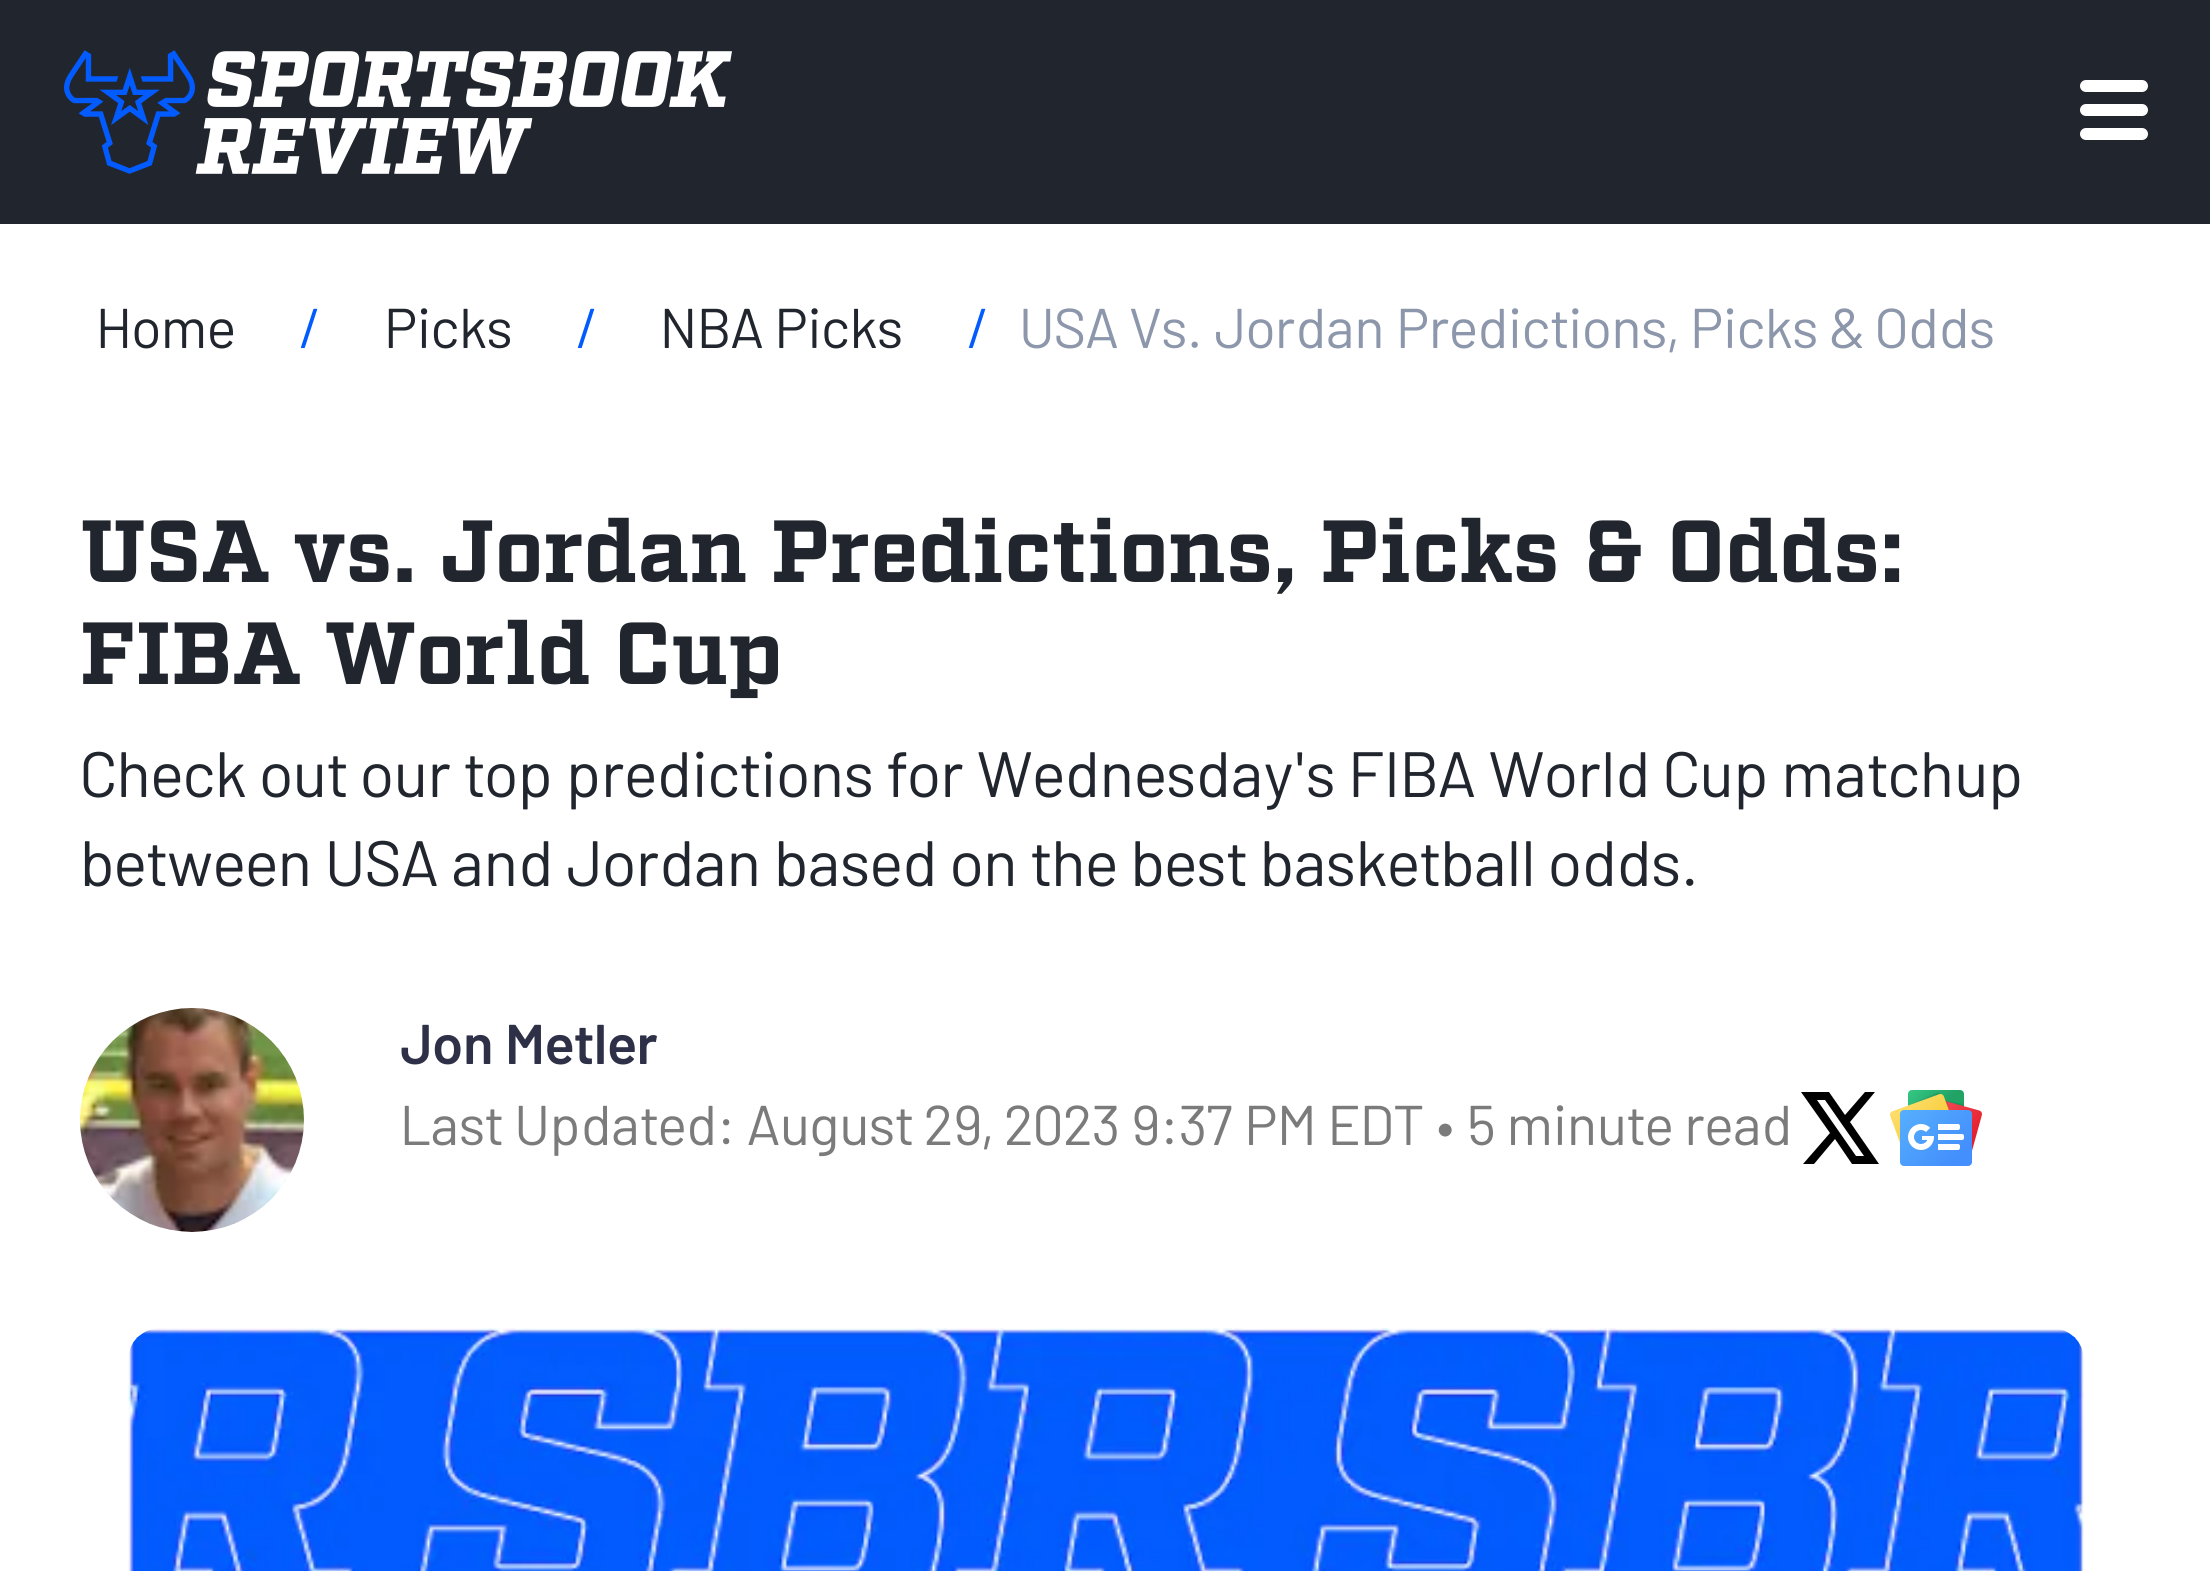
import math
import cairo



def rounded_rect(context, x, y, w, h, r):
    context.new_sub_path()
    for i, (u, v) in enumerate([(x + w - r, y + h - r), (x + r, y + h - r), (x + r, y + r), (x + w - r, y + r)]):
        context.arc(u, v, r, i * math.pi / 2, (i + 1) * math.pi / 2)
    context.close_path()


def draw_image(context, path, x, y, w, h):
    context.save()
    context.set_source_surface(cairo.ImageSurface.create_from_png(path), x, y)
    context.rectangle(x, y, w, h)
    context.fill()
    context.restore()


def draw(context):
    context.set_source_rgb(1, 1, 1)
    context.paint()
    context.set_source_rgb(33 / 255, 37 / 255, 45 / 255)
    context.rectangle(0, 0, 2210, 224)
    context.fill()
    draw_image(context, "images/1.png", 64, 50, 668, 124)
    context.set_source_rgb(1, 1, 1)
    rounded_rect(context, 2080, 80, 68, 12, 6)
    context.fill()
    rounded_rect(context, 2080, 104, 68, 12, 6)
    context.fill()
    rounded_rect(context, 2080, 128, 68, 12, 6)
    context.fill()
    draw_image(context, "images/2.png", 80, 1008, 224, 224)
    context.set_source_rgb(0, 0, 0)
    context.new_path()
    context.move_to(1801, 1092)
    context.line_to(1830, 1133)
    context.line_to(1803, 1164)
    context.line_to(1814, 1164)
    context.line_to(1835, 1139)
    context.line_to(1852, 1164)
    context.line_to(1879, 1164)
    context.line_to(1850, 1122)
    context.line_to(1875, 1092)
    context.line_to(1865, 1092)
    context.line_to(1845, 1115)
    context.line_to(1829, 1092)
    context.close_path()
    context.move_to(1817, 1100)
    context.line_to(1825, 1100)
    context.line_to(1864, 1156)
    context.line_to(1856, 1156)
    context.close_path()
    context.fill()
    draw_image(context, "images/3.png", 1890, 1090, 92, 76)
    draw_image(context, "images/4.png", 128, 1328, 1956, 243)
    context.select_font_face("Barlow")
    context.set_font_size(56)
    context.set_source_rgb(33 / 255, 37 / 255, 45 / 255)
    context.move_to(96, 348)
    context.show_text("Home")
    context.set_source_rgb(2 / 255, 91 / 255, 1)
    context.move_to(299, 348)
    context.show_text("/")
    context.set_source_rgb(33 / 255, 37 / 255, 45 / 255)
    context.move_to(384, 348)
    context.show_text("Picks")
    context.set_source_rgb(2 / 255, 91 / 255, 1)
    context.move_to(576, 348)
    context.show_text("/")
    context.set_source_rgb(33 / 255, 37 / 255, 45 / 255)
    context.move_to(660, 348)
    context.show_text("NBA Picks")
    context.set_source_rgb(2 / 255, 91 / 255, 1)
    context.move_to(967, 348)
    context.show_text("/")
    context.set_source_rgb(141 / 255, 151 / 255, 171 / 255)
    context.move_to(1019, 348)
    context.show_text("USA Vs. Jordan Predictions, Picks & Odds")
    context.select_font_face("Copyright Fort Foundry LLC", cairo.FontSlant.NORMAL, cairo.FontWeight.BOLD)
    context.set_font_size(88)
    context.set_source_rgb(33 / 255, 37 / 255, 45 / 255)
    context.move_to(80, 582)
    context.show_text("USA vs. Jordan Predictions, Picks & Odds:")
    context.move_to(80, 684)
    context.show_text("FIBA World Cup")
    context.select_font_face("Barlow")
    context.set_font_size(64)
    context.move_to(80, 797)
    context.show_text("Check out our top predictions for Wednesday's FIBA World Cup matchup")
    context.move_to(80, 886)
    context.show_text("between USA and Jordan based on the best basketball odds.")
    context.select_font_face("Barlow SemiBold")
    context.set_font_size(56)
    context.set_source_rgb(45 / 255, 48 / 255, 71 / 255)
    context.move_to(400, 1064)
    context.show_text("Jon Metler")
    context.select_font_face("Barlow")
    context.set_source_rgb(123 / 255, 123 / 255, 123 / 255)
    context.move_to(400, 1145)
    context.show_text("Last Updated: August 29, 2023 9:37 PM EDT • 5 minute read")


surface = cairo.ImageSurface(cairo.Format.RGB24, 2210, 1571)
context = cairo.Context(surface)
options = cairo.FontOptions()
options.set_hint_metrics(cairo.HintMetrics.OFF)
options.set_hint_style(cairo.HintStyle.NONE)
context.set_font_options(options)
context.set_miter_limit(4)
draw(context)
surface.write_to_png("out.png")
